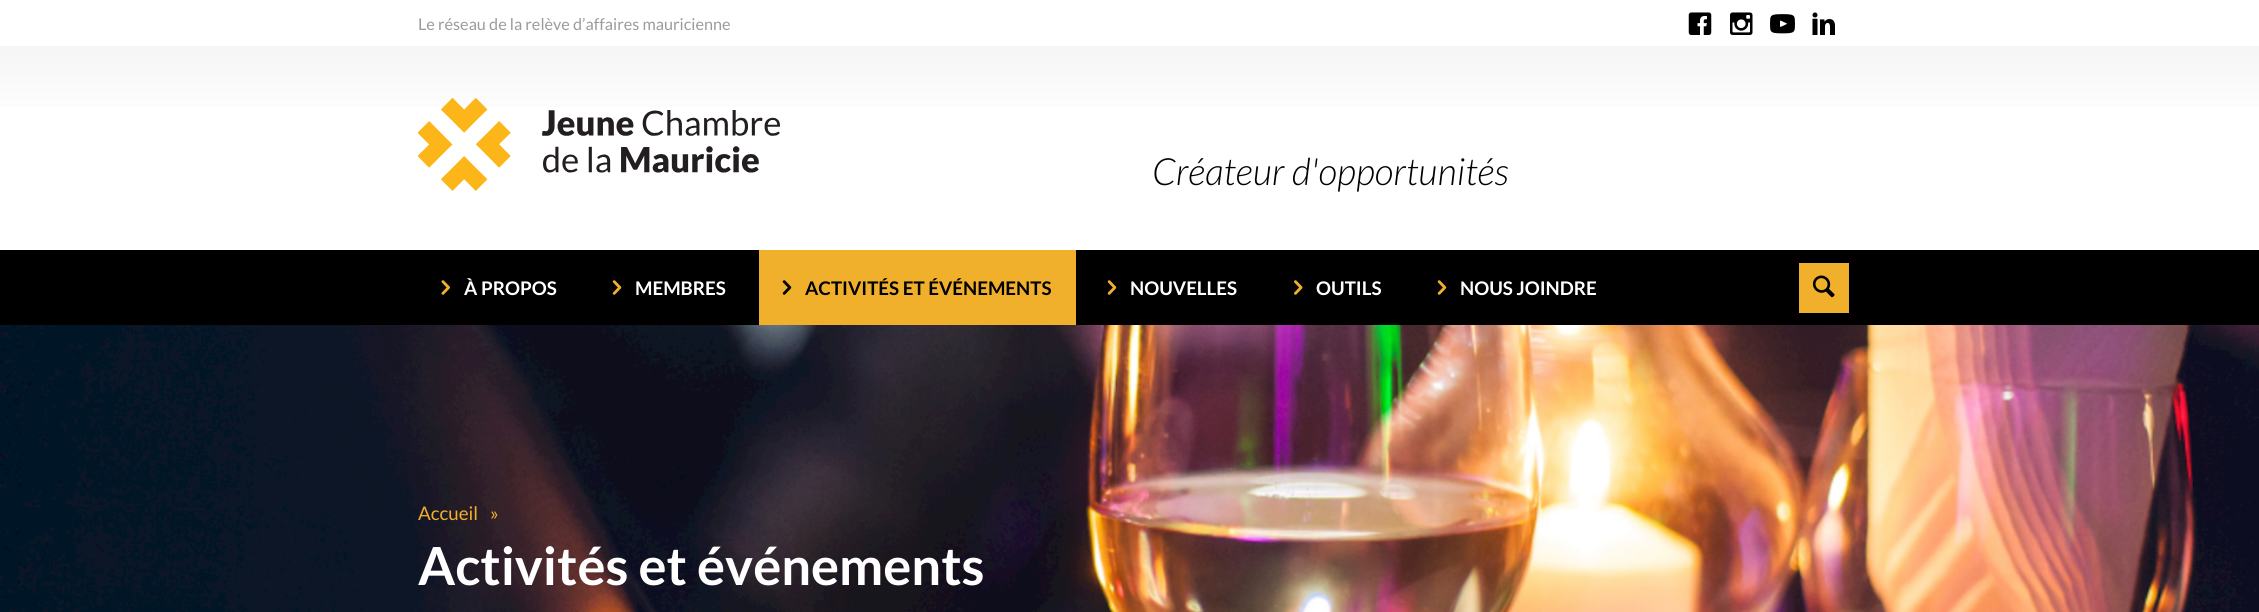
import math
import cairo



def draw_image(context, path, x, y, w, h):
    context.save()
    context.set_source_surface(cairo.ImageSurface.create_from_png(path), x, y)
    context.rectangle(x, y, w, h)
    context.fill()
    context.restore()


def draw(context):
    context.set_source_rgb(1, 1, 1)
    context.paint()
    draw_image(context, "images/1.png", 1688, 12, 24, 23)
    draw_image(context, "images/2.png", 1730, 12, 23, 23)
    draw_image(context, "images/3.png", 1770, 14, 25, 20)
    draw_image(context, "images/4.png", 1812, 12, 23, 23)
    gradient = cairo.LinearGradient(1130, 250, 1130, 46)
    gradient.add_color_stop_rgba(0.6, 1, 1, 1, 1)
    gradient.add_color_stop_rgba(1, 245 / 255, 245 / 255, 245 / 255, 1)
    context.set_source(gradient)
    context.rectangle(0, 46, 2259, 61)
    context.fill()
    draw_image(context, "images/5.png", 418, 97, 362, 94)
    context.set_source_rgb(0, 0, 0)
    context.rectangle(0, 250, 2259, 75)
    context.fill()
    draw_image(context, "images/6.png", 441, 280, 9, 15)
    draw_image(context, "images/7.png", 612, 280, 10, 15)
    context.set_source_rgb(241 / 255, 176 / 255, 44 / 255)
    context.rectangle(759, 250, 317, 75)
    context.fill()
    draw_image(context, "images/8.png", 782, 280, 10, 15)
    draw_image(context, "images/7.png", 1107, 280, 10, 15)
    draw_image(context, "images/9.png", 1294, 280, 9, 15)
    draw_image(context, "images/7.png", 1437, 280, 10, 15)
    context.rectangle(1799, 263, 50, 50)
    context.fill()
    draw_image(context, "images/10.png", 1812, 275, 23, 23)
    draw_image(context, "images/11.png", 0, 325, 2259, 287)
    context.select_font_face("Lato")
    context.set_font_size(16.25)
    context.set_source_rgb(155 / 255, 155 / 255, 155 / 255)
    context.move_to(418, 30)
    context.show_text("Le réseau de la relève d’affaires mauricienne")
    context.select_font_face("Lato Light", cairo.FontSlant.ITALIC)
    context.set_font_size(37.5)
    context.set_source_rgb(0, 0, 0)
    context.move_to(1152, 185)
    context.show_text("Créateur d'opportunités")
    context.select_font_face("Lato", cairo.FontSlant.NORMAL, cairo.FontWeight.BOLD)
    context.set_font_size(18.75)
    context.set_source_rgb(1, 1, 1)
    context.move_to(464, 295)
    context.show_text("À PROPOS")
    context.move_to(635, 295)
    context.show_text("MEMBRES")
    context.set_source_rgb(0, 0, 0)
    context.move_to(805, 295)
    context.show_text("ACTIVITÉS ET ÉVÉNEMENTS")
    context.set_source_rgb(1, 1, 1)
    context.move_to(1130, 295)
    context.show_text("NOUVELLES")
    context.move_to(1316, 295)
    context.show_text("OUTILS")
    context.move_to(1460, 295)
    context.show_text("NOUS JOINDRE")
    context.select_font_face("Lato")
    context.set_source_rgb(241 / 255, 176 / 255, 44 / 255)
    context.move_to(418, 520)
    context.show_text("Accueil")
    context.move_to(490, 520)
    context.show_text("»")
    context.select_font_face("Lato", cairo.FontSlant.NORMAL, cairo.FontWeight.BOLD)
    context.set_font_size(52.5)
    context.set_source_rgb(1, 1, 1)
    context.move_to(418, 585)
    context.show_text("Activités et événements")


surface = cairo.ImageSurface(cairo.Format.RGB24, 2259, 612)
context = cairo.Context(surface)
options = cairo.FontOptions()
options.set_hint_metrics(cairo.HintMetrics.OFF)
options.set_hint_style(cairo.HintStyle.NONE)
context.set_font_options(options)
context.set_miter_limit(4)
draw(context)
surface.write_to_png("out.png")
